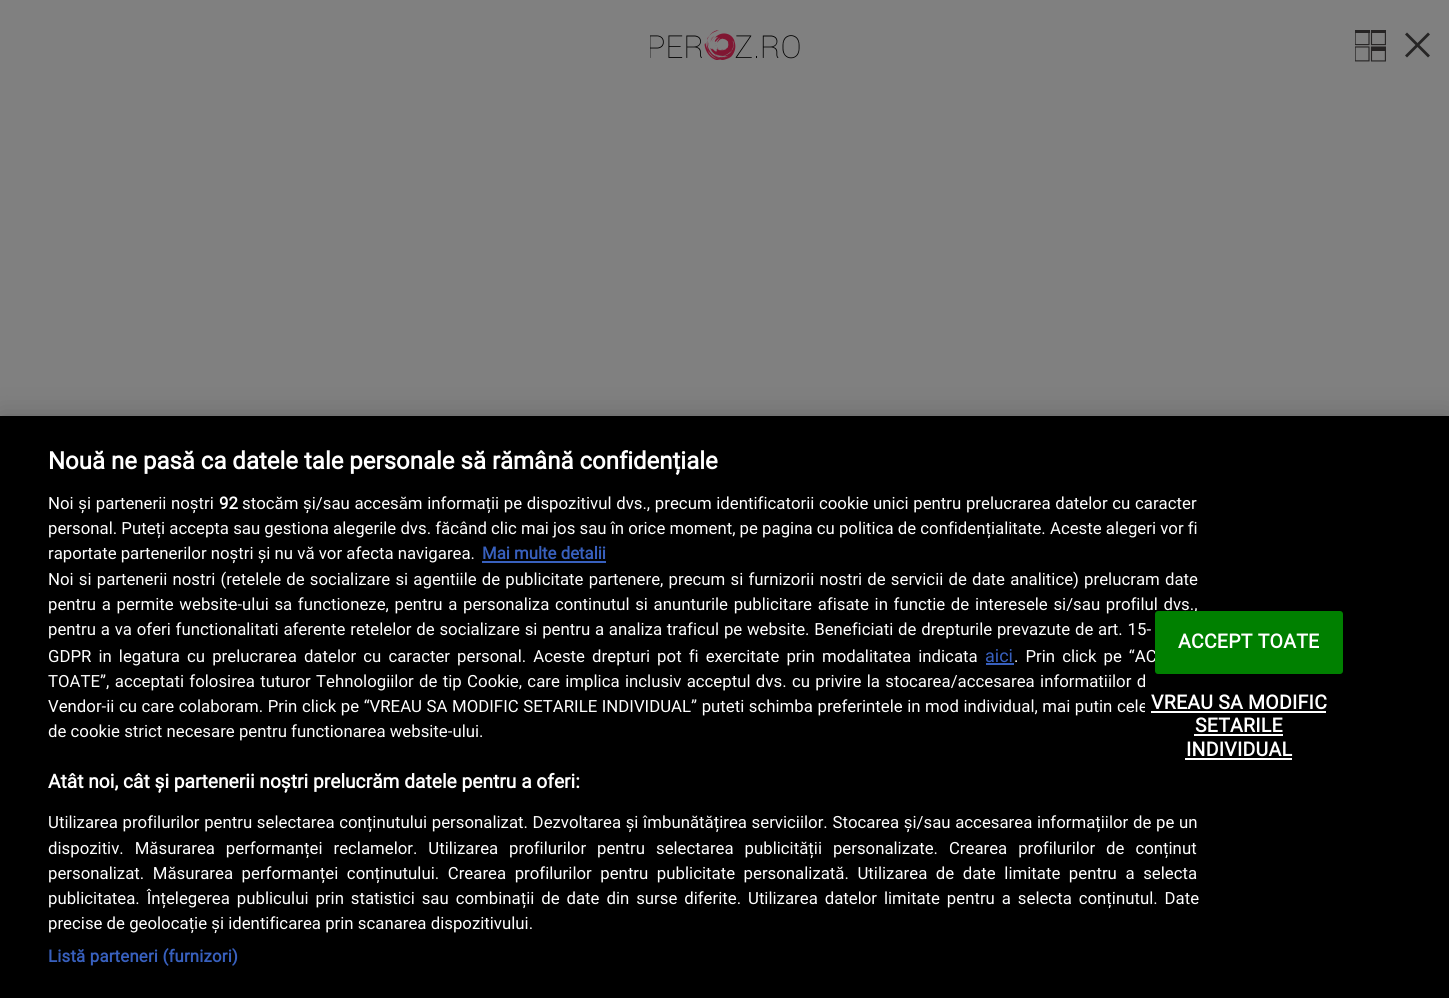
import math
import cairo



def draw_spaced(context, x, y, s, letter, word):
    context.move_to(x, y)
    for ch in s:
        context.show_text(ch)
        context.rel_move_to(letter + word * (ch == ' '), 0)


def rounded_rect(context, x, y, w, h, r):
    context.new_sub_path()
    for i, (u, v) in enumerate([(x + w - r, y + h - r), (x + r, y + h - r), (x + r, y + r), (x + w - r, y + r)]):
        context.arc(u, v, r, i * math.pi / 2, (i + 1) * math.pi / 2)
    context.close_path()


def draw_shadow(context, x, y, w, h, r, blur, alpha):
    context.push_group_with_content(cairo.Content.ALPHA)
    context.set_operator(cairo.Operator.SOURCE)
    for i in range(15, -16, -2):
        e = blur * i / 6
        if min(w, h) + 2 * e > 0:
            context.set_source_rgba(0, 0, 0, alpha * math.erfc((i - 1) / 8.5) / 2)
            rounded_rect(context, x - e, y - e, w + 2 * e, h + 2 * e, max(0, min(r + e + blur * .6, min(w, h) / 2 + e)))
            context.fill()
    context.mask(context.pop_group())


def draw_image(context, path, x, y, w, h):
    context.save()
    context.set_source_surface(cairo.ImageSurface.create_from_png(path), x, y)
    context.rectangle(x, y, w, h)
    context.fill()
    context.restore()


def draw(context):
    context.set_source_rgb(128 / 255, 128 / 255, 128 / 255)
    context.paint()
    draw_image(context, "images/1.png", 650, 30, 150, 30)
    draw_image(context, "images/2.png", 1355, 30, 31, 32)
    context.set_source_rgb(38 / 255, 37 / 255, 37 / 255)
    context.new_path()
    context.move_to(1428, 32.5)
    context.line_to(1430, 34.5)
    context.line_to(1407, 57.5)
    context.line_to(1405, 55.5)
    context.close_path()
    context.fill()
    context.new_path()
    context.move_to(1405, 34.5)
    context.line_to(1407, 32.5)
    context.line_to(1430, 55.5)
    context.line_to(1428, 57.5)
    context.close_path()
    context.fill()
    context.set_source_rgb(0, 0, 0)
    draw_shadow(context, 0, 416, 1449, 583, 0, 13.5, 0.2)
    context.set_source_rgb(0, 0, 0)
    context.rectangle(0, 416, 1449, 582)
    context.fill()
    context.set_source_rgb(56 / 255, 96 / 255, 190 / 255)
    context.rectangle(482, 561, 124, 2)
    context.fill()
    context.rectangle(986, 663, 28, 2)
    context.fill()
    context.select_font_face("Roboto", cairo.FontSlant.NORMAL, cairo.FontWeight.BOLD)
    context.set_font_size(24)
    context.set_source_rgb(1, 1, 1)
    context.move_to(48, 469)
    context.show_text("Nouă ne pasă ca datele tale personale să rămână confidențiale")
    context.select_font_face("Roboto")
    context.set_font_size(16.8)
    draw_spaced(context, 48, 509, "Noi și partenerii noștri", 0, 0.5)
    context.select_font_face("Roboto", cairo.FontSlant.NORMAL, cairo.FontWeight.BOLD)
    context.move_to(219, 509)
    context.show_text("92")
    context.select_font_face("Roboto")
    draw_spaced(context, 242, 509, "stocăm și/sau accesăm informații pe dispozitivul dvs., precum identificatorii cookie unici pentru prelucrarea datelor cu caracter", 0, 0.5)
    context.move_to(48, 534)
    context.show_text("personal. Puteți accepta sau gestiona alegerile dvs. făcând clic mai jos sau în orice moment, pe pagina cu politica de confidențialitate. Aceste alegeri vor fi")
    context.move_to(48, 559)
    context.show_text("raportate partenerilor noștri și nu vă vor afecta navigarea.")
    context.select_font_face("Roboto", cairo.FontSlant.NORMAL, cairo.FontWeight.BOLD)
    context.set_source_rgb(56 / 255, 96 / 255, 190 / 255)
    context.move_to(482, 559)
    context.show_text("Mai multe detalii")
    context.select_font_face("Roboto")
    context.set_source_rgb(1, 1, 1)
    draw_spaced(context, 48, 585, "Noi si partenerii nostri (retelele de socializare si agentiile de publicitate partenere, precum si furnizorii nostri de servicii de date analitice) prelucram date", 0, 1)
    draw_spaced(context, 48, 610, "pentru a permite website-ului sa functioneze, pentru a personaliza continutul si anunturile publicitare afisate in functie de interesele si/sau profilul dvs.,", 0, 1.5)
    draw_spaced(context, 48, 635, "pentru a va oferi functionalitati aferente retelelor de socializare si pentru a analiza traficul pe website. Beneficiati de drepturile prevazute de art. 15-", 0, 0.6)
    draw_spaced(context, 48, 662, "GDPR in legatura cu prelucrarea datelor cu caracter personal. Aceste drepturi pot fi exercitate prin modalitatea indicata", 0, 2.9)
    context.set_font_size(18)
    context.set_source_rgb(56 / 255, 96 / 255, 190 / 255)
    context.move_to(985, 662)
    context.show_text("aici")
    context.set_font_size(16.8)
    context.set_source_rgb(1, 1, 1)
    draw_spaced(context, 1014, 662, ". Prin click pe “AC", 0, 2.9)
    draw_spaced(context, 48, 687, "TOATE”, acceptati folosirea tuturor Tehnologiilor de tip Cookie, care implica inclusiv acceptul dvs. cu privire la stocarea/accesarea informatiilor d", 0, 1.2)
    draw_spaced(context, 48, 712, "Vendor-ii cu care colaboram. Prin click pe “VREAU SA MODIFIC SETARILE INDIVIDUAL” puteti schimba preferintele in mod individual, mai putin cele", 0, 0.4)
    context.move_to(48, 737)
    context.show_text("de cookie strict necesare pentru functionarea website-ului.")
    context.select_font_face("Roboto", cairo.FontSlant.NORMAL, cairo.FontWeight.BOLD)
    context.set_font_size(19.2)
    context.move_to(48, 788)
    context.show_text("Atât noi, cât și partenerii noștri prelucrăm datele pentru a oferi:")
    context.select_font_face("Roboto")
    context.set_font_size(16.8)
    draw_spaced(context, 48, 828, "Utilizarea profilurilor pentru selectarea conținutului personalizat. Dezvoltarea și îmbunătățirea serviciilor. Stocarea și/sau accesarea informațiilor de pe un", 0, 0.5)
    draw_spaced(context, 48, 854, "dispozitiv. Măsurarea performanței reclamelor. Utilizarea profilurilor pentru selectarea publicității personalizate. Crearea profilurilor de conținut", 0, 6.75)
    draw_spaced(context, 48, 879, "personalizat. Măsurarea performanței conținutului. Crearea profilurilor pentru publicitate personalizată. Utilizarea de date limitate pentru a selecta", 0, 4.4)
    draw_spaced(context, 48, 904, "publicitatea. Înțelegerea publicului prin statistici sau combinații de date din surse diferite. Utilizarea datelor limitate pentru a selecta conținutul. Date", 0, 2.75)
    context.move_to(48, 929)
    context.show_text("precise de geolocație și identificarea prin scanarea dispozitivului.")
    context.select_font_face("Roboto", cairo.FontSlant.NORMAL, cairo.FontWeight.BOLD)
    context.set_source_rgb(56 / 255, 96 / 255, 190 / 255)
    draw_spaced(context, 48, 962, "Listă parteneri (furnizori)", 0.2, 0)
    context.set_source_rgb(0, 128 / 255, 0)
    rounded_rect(context, 1156, 612, 186, 61, 2)
    context.fill_preserve()
    context.stroke()
    context.set_font_size(19.5)
    context.set_source_rgb(1, 1, 1)
    draw_spaced(context, 1178, 648, "ACCEPT TOATE", 0.25, 0)
    context.set_source_rgb(0, 0, 0)
    rounded_rect(context, 1145, 674, 187, 106, 3)
    context.fill()
    context.set_source_rgb(1, 1, 1)
    draw_spaced(context, 1151, 709, "VREAU SA MODIFIC", 0.25, 0)
    context.rectangle(1151, 711, 175, 2)
    context.fill()
    draw_spaced(context, 1195, 732, "SETARILE", 0.25, 0)
    context.rectangle(1194, 734, 89, 2)
    context.fill()
    draw_spaced(context, 1186, 756, "INDIVIDUAL", 0.25, 0)
    context.rectangle(1185, 758, 107, 2)
    context.fill()


surface = cairo.ImageSurface(cairo.Format.RGB24, 1449, 998)
context = cairo.Context(surface)
options = cairo.FontOptions()
options.set_hint_metrics(cairo.HintMetrics.OFF)
options.set_hint_style(cairo.HintStyle.NONE)
context.set_font_options(options)
context.set_miter_limit(4)
draw(context)
surface.write_to_png("out.png")
